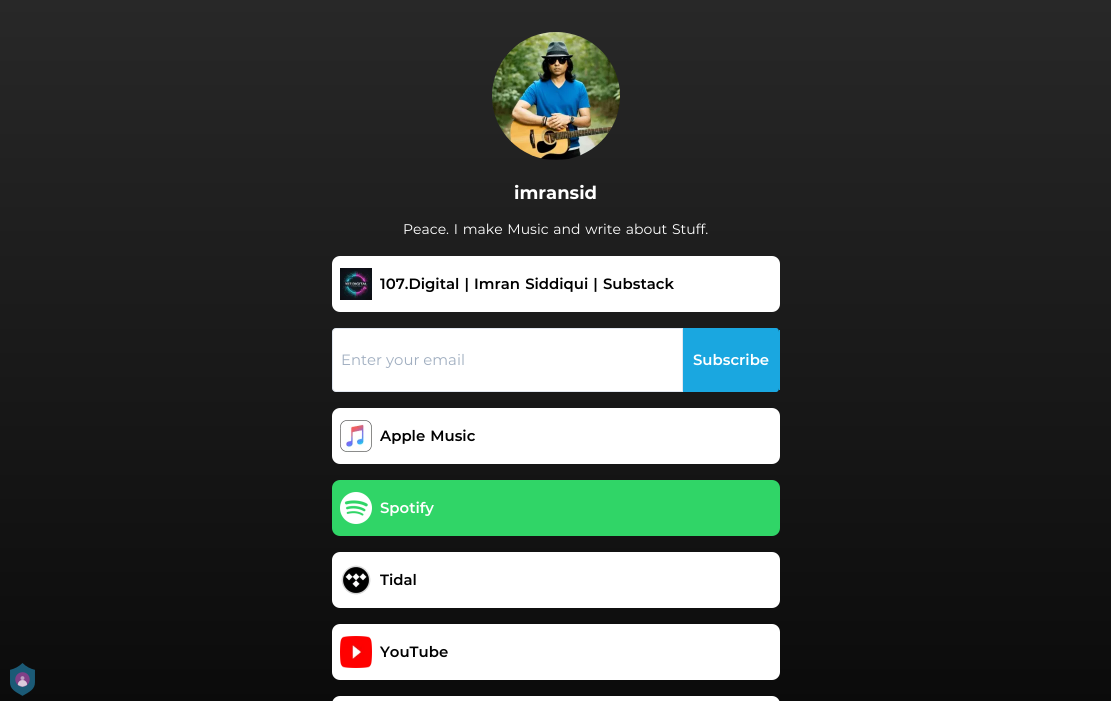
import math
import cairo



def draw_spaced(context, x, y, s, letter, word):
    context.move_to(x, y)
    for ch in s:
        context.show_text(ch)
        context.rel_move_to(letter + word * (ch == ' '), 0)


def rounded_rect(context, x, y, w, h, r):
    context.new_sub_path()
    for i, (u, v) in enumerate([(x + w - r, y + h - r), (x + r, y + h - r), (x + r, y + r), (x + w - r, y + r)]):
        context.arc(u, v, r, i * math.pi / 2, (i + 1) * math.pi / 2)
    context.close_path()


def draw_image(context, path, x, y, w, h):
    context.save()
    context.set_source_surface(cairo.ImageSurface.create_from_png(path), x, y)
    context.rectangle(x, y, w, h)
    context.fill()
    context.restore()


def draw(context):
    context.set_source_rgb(1, 1, 1)
    context.paint()
    gradient = cairo.LinearGradient(556, 0, 556, 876)
    gradient.add_color_stop_rgba(0, 40 / 255, 40 / 255, 40 / 255, 1)
    gradient.add_color_stop_rgba(1, 4 / 255, 4 / 255, 4 / 255, 1)
    context.set_source(gradient)
    context.rectangle(0, 0, 1111, 701)
    context.fill()
    draw_image(context, "images/1.png", 492, 32, 128, 128)
    context.set_source_rgb(1, 1, 1)
    rounded_rect(context, 332, 256, 448, 56, 8)
    context.fill()
    draw_image(context, "images/2.png", 340, 268, 32, 32)
    context.new_path()
    context.move_to(336, 328.5)
    context.line_to(682.5, 328.5)
    context.line_to(682.5, 391.5)
    context.line_to(336, 391.5)
    context.curve_to(334, 391.5, 332.5, 390, 332.5, 388)
    context.line_to(332.5, 332)
    context.curve_to(332.5, 330, 334, 328.5, 336, 328.5)
    context.close_path()
    context.fill_preserve()
    context.set_source_rgb(226 / 255, 232 / 255, 240 / 255)
    context.set_line_width(1)
    context.stroke()
    context.set_source_rgb(26 / 255, 167 / 255, 224 / 255)
    context.new_path()
    context.move_to(683, 328)
    context.line_to(776, 328)
    context.curve_to(778, 328, 779, 330, 779, 332)
    context.line_to(779, 388)
    context.curve_to(779, 390, 778, 392, 776, 392)
    context.line_to(683, 392)
    context.close_path()
    context.fill()
    context.rectangle(779, 330, 1, 60)
    context.fill()
    context.set_source_rgb(1, 1, 1)
    rounded_rect(context, 332, 408, 448, 56, 8)
    context.fill()
    draw_image(context, "images/3.png", 340, 420, 32, 32)
    context.set_source_rgb(48 / 255, 213 / 255, 103 / 255)
    rounded_rect(context, 332, 480, 448, 56, 8)
    context.fill()
    draw_image(context, "images/4.png", 340, 492, 32, 32)
    context.set_source_rgb(1, 1, 1)
    rounded_rect(context, 332, 552, 448, 56, 8)
    context.fill()
    draw_image(context, "images/5.png", 341, 565, 30, 30)
    rounded_rect(context, 332, 624, 448, 56, 8)
    context.fill()
    draw_image(context, "images/6.png", 340, 636, 32, 32)
    rounded_rect(context, 332, 696, 448, 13, 8)
    context.fill()
    draw_image(context, "images/7.png", 10, 663, 25, 33)
    context.select_font_face("Montserrat", cairo.FontSlant.NORMAL, cairo.FontWeight.BOLD)
    context.set_font_size(18)
    context.move_to(514, 199)
    context.show_text("imransid")
    context.select_font_face("Montserrat")
    context.set_font_size(14)
    draw_spaced(context, 403, 234, "Peace. I make Music and write about Stuff.", 0, 1)
    context.select_font_face("Montserrat SemiBold")
    context.set_font_size(14.9)
    context.set_source_rgb(0, 0, 0)
    draw_spaced(context, 380, 289, "107.Digital | Imran Siddiqui | Substack", 0, 1)
    context.select_font_face("Montserrat")
    context.set_source_rgb(160 / 255, 174 / 255, 192 / 255)
    context.move_to(341, 365)
    context.show_text("Enter your email")
    context.select_font_face("Montserrat SemiBold")
    context.set_source_rgb(1, 1, 1)
    context.move_to(693, 365)
    context.show_text("Subscribe")
    context.set_source_rgb(0, 0, 0)
    draw_spaced(context, 380, 441, "Apple Music", 0, 1)
    context.set_source_rgb(1, 1, 1)
    context.move_to(380, 513)
    context.show_text("Spotify")
    context.set_source_rgb(0, 0, 0)
    context.move_to(380, 585)
    context.show_text("Tidal")
    context.move_to(380, 657)
    context.show_text("YouTube")


surface = cairo.ImageSurface(cairo.Format.RGB24, 1111, 701)
context = cairo.Context(surface)
options = cairo.FontOptions()
options.set_hint_metrics(cairo.HintMetrics.OFF)
options.set_hint_style(cairo.HintStyle.NONE)
context.set_font_options(options)
context.set_miter_limit(4)
draw(context)
surface.write_to_png("out.png")
